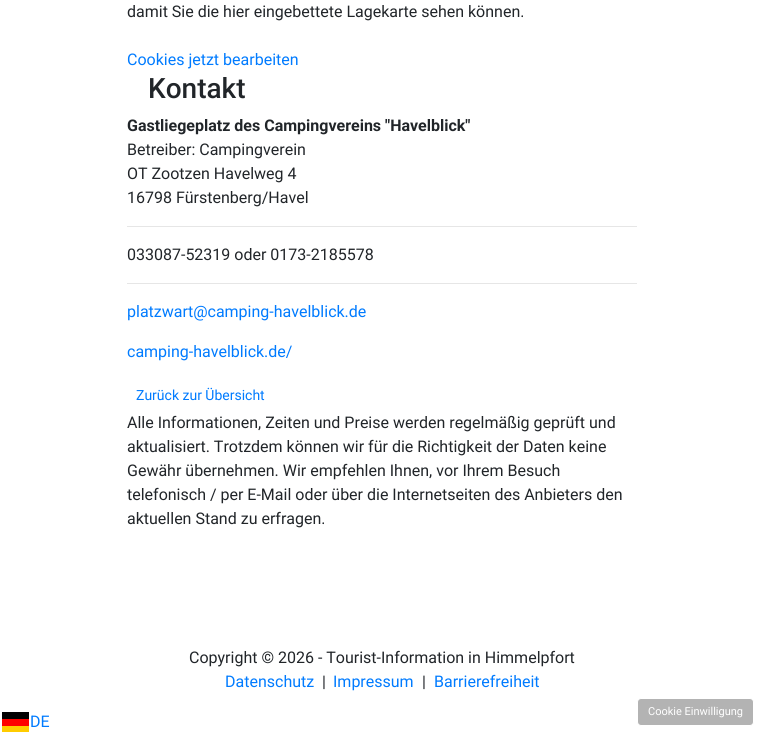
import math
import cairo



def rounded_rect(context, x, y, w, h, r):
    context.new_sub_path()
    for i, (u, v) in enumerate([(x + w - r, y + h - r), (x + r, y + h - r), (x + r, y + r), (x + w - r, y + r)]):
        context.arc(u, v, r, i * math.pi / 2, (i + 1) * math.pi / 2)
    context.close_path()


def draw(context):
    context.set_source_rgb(1, 1, 1)
    context.paint()
    context.set_source_rgb(230 / 255, 230 / 255, 230 / 255)
    context.rectangle(127, 226, 510, 1)
    context.fill()
    context.rectangle(127, 283, 510, 1)
    context.fill()
    context.set_source_rgb(179 / 255, 179 / 255, 179 / 255)
    rounded_rect(context, 637.5, 698.5, 116, 27, 3.5)
    context.fill_preserve()
    context.set_source_rgb(1, 1, 1)
    context.set_line_width(1)
    context.stroke()
    context.set_source_rgb(1, 204 / 255, 0)
    context.rectangle(2, 726, 27, 6)
    context.fill()
    context.set_source_rgb(0, 0, 1 / 255)
    context.rectangle(2, 712, 27, 7)
    context.fill()
    context.set_source_rgb(1, 0, 0)
    context.rectangle(2, 719, 27, 7)
    context.fill()
    context.select_font_face("Roboto")
    context.set_font_size(16)
    context.set_source_rgb(33 / 255, 37 / 255, 41 / 255)
    context.move_to(127, 17)
    context.show_text("damit Sie die hier eingebettete Lagekarte sehen können.")
    context.set_source_rgb(0, 123 / 255, 1)
    context.move_to(127, 65)
    context.show_text("Cookies jetzt bearbeiten")
    context.select_font_face("Roboto Medium")
    context.set_font_size(28)
    context.set_source_rgb(33 / 255, 37 / 255, 41 / 255)
    context.move_to(148, 98)
    context.show_text("Kontakt")
    context.select_font_face("Roboto", cairo.FontSlant.NORMAL, cairo.FontWeight.BOLD)
    context.set_font_size(16)
    context.move_to(127, 131)
    context.show_text("Gastliegeplatz des Campingvereins \"Havelblick\"")
    context.select_font_face("Roboto")
    context.move_to(127, 155)
    context.show_text("Betreiber: Campingverein")
    context.move_to(127, 179)
    context.show_text("OT Zootzen Havelweg 4")
    context.move_to(127, 203)
    context.show_text("16798 Fürstenberg/Havel")
    context.move_to(127, 260)
    context.show_text("033087-52319 oder 0173-2185578")
    context.set_source_rgb(0, 123 / 255, 1)
    context.move_to(127, 317)
    context.show_text("platzwart@camping-havelblick.de")
    context.move_to(127, 357)
    context.show_text("camping-havelblick.de/")
    context.set_font_size(14)
    context.move_to(136, 400)
    context.show_text("Zurück zur Übersicht")
    context.set_font_size(16)
    context.set_source_rgb(33 / 255, 37 / 255, 41 / 255)
    context.move_to(127, 428)
    context.show_text("Alle Informationen, Zeiten und Preise werden regelmäßig geprüft und")
    context.move_to(127, 452)
    context.show_text("aktualisiert. Trotzdem können wir für die Richtigkeit der Daten keine")
    context.move_to(127, 476)
    context.show_text("Gewähr übernehmen. Wir empfehlen Ihnen, vor Ihrem Besuch")
    context.move_to(127, 500)
    context.show_text("telefonisch / per E-Mail oder über die Internetseiten des Anbieters den")
    context.move_to(127, 524)
    context.show_text("aktuellen Stand zu erfragen.")
    context.move_to(189, 663)
    context.show_text("Copyright © 2026 - Tourist-Information in Himmelpfort")
    context.set_source_rgb(0, 123 / 255, 1)
    context.move_to(225, 687)
    context.show_text("Datenschutz")
    context.set_source_rgb(33 / 255, 37 / 255, 41 / 255)
    context.move_to(322, 687)
    context.show_text("|")
    context.set_source_rgb(0, 123 / 255, 1)
    context.move_to(333, 687)
    context.show_text("Impressum")
    context.set_source_rgb(33 / 255, 37 / 255, 41 / 255)
    context.move_to(422, 687)
    context.show_text("|")
    context.set_source_rgb(0, 123 / 255, 1)
    context.move_to(434, 687)
    context.show_text("Barrierefreiheit")
    context.set_font_size(11)
    context.set_source_rgb(1, 1, 1)
    context.move_to(648, 715)
    context.show_text("Cookie Einwilligung")
    context.set_font_size(16)
    context.set_source_rgb(0, 123 / 255, 1)
    context.move_to(30, 727)
    context.show_text("DE")


surface = cairo.ImageSurface(cairo.Format.RGB24, 764, 736)
context = cairo.Context(surface)
options = cairo.FontOptions()
options.set_hint_metrics(cairo.HintMetrics.OFF)
options.set_hint_style(cairo.HintStyle.NONE)
context.set_font_options(options)
context.set_miter_limit(4)
draw(context)
surface.write_to_png("out.png")
